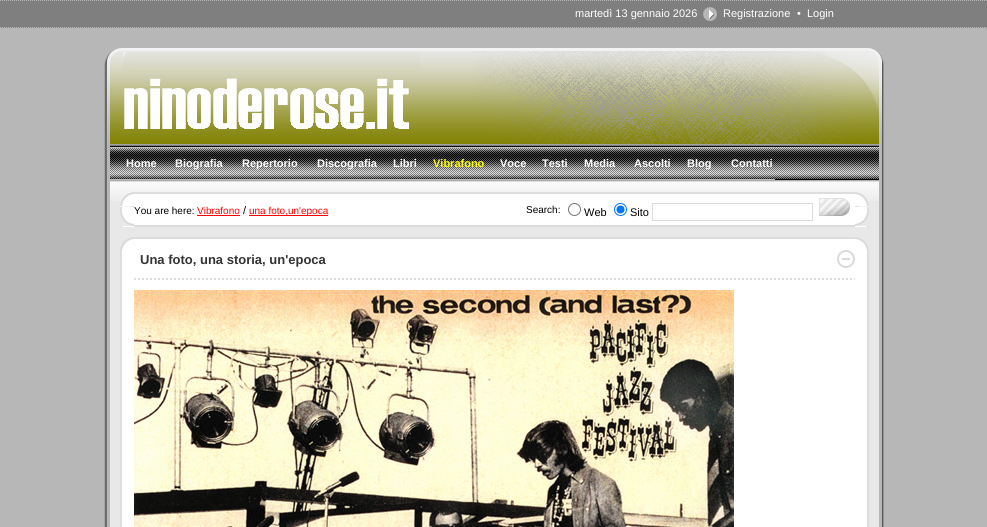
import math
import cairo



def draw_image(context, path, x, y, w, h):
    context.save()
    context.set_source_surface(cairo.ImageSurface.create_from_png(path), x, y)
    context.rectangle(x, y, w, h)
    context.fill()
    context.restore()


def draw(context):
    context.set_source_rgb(183 / 255, 183 / 255, 183 / 255)
    context.paint()
    context.set_source_rgb(127 / 255, 127 / 255, 127 / 255)
    context.rectangle(0, 0, 987, 28)
    context.fill()
    context.new_path()
    context.move_to(0, 0.5)
    context.line_to(987, 0.5)
    context.set_source_rgb(183 / 255, 183 / 255, 183 / 255)
    context.set_line_width(1)
    context.set_dash([1, 1])
    context.stroke()
    context.new_path()
    context.move_to(0, 27.5)
    context.line_to(987, 27.5)
    context.stroke()
    draw_image(context, "images/1.png", 703, 7, 14, 14)
    context.set_source_rgb(232 / 255, 232 / 255, 232 / 255)
    context.rectangle(110, 201, 769, 326)
    context.fill()
    draw_image(context, "images/2.png", 121, 48, 352, 96)
    draw_image(context, "images/3.png", 104, 48, 17, 96)
    draw_image(context, "images/4.png", 473, 48, 411, 96)
    draw_image(context, "images/5.png", 123, 52, 297, 77)
    draw_image(context, "images/6.png", 104, 144, 6, 38)
    draw_image(context, "images/7.png", 110, 144, 769, 38)
    context.set_source_rgb(187 / 255, 187 / 255, 187 / 255)
    context.rectangle(110, 147, 665, 1)
    context.fill()
    context.rectangle(110, 179, 665, 1)
    context.fill()
    draw_image(context, "images/8.png", 879, 144, 5, 38)
    draw_image(context, "images/9.png", 104, 182, 6, 55)
    draw_image(context, "images/10.png", 110, 182, 769, 19)
    context.set_source_rgb(1, 1, 1)
    context.rectangle(122, 194, 745, 31)
    context.fill()
    draw_image(context, "images/11.png", 120, 192, 14, 15)
    draw_image(context, "images/12.png", 855, 192, 14, 15)
    context.set_source_rgb(221 / 255, 221 / 255, 221 / 255)
    context.rectangle(134, 192, 721, 2)
    context.fill()
    context.rectangle(134, 225, 721, 2)
    context.fill()
    context.set_source_rgb(1, 0, 0)
    context.rectangle(197, 215, 43, 1)
    context.fill()
    context.rectangle(249, 215, 79, 1)
    context.fill()
    context.arc(574.5, 209.5, 6, 0, 2 * math.pi)
    context.set_source_rgb(118 / 255, 118 / 255, 118 / 255)
    context.set_dash([])
    context.stroke()
    context.arc(620.5, 209.5, 6, 0, 2 * math.pi)
    context.set_source_rgb(0, 117 / 255, 1)
    context.stroke()
    context.arc(620.5, 209.5, 4, 0, 2 * math.pi)
    context.fill()
    context.rectangle(652.5, 203.5, 160, 17)
    context.set_source_rgb(221 / 255, 221 / 255, 221 / 255)
    context.stroke()
    draw_image(context, "images/13.png", 819, 198, 31, 18)
    context.rectangle(120, 207, 2, 6)
    context.fill()
    context.rectangle(867, 207, 2, 6)
    context.fill()
    draw_image(context, "images/14.png", 120, 213, 14, 14)
    draw_image(context, "images/15.png", 855, 213, 14, 14)
    draw_image(context, "images/16.png", 879, 182, 5, 55)
    draw_image(context, "images/17.png", 104, 237, 6, 290)
    context.set_source_rgb(1, 1, 1)
    context.rectangle(122, 239, 745, 288)
    context.fill()
    draw_image(context, "images/18.png", 120, 237, 14, 13)
    context.set_source_rgb(221 / 255, 221 / 255, 221 / 255)
    context.rectangle(134, 237, 721, 2)
    context.fill()
    draw_image(context, "images/19.png", 855, 237, 14, 13)
    context.rectangle(120, 250, 2, 277)
    context.fill()
    context.new_path()
    context.move_to(134, 279)
    context.line_to(855, 279)
    context.set_line_width(2)
    context.set_dash([2, 2])
    context.stroke()
    draw_image(context, "images/20.png", 837, 250, 18, 18)
    draw_image(context, "images/21.png", 134, 290, 600, 237)
    context.rectangle(867, 250, 2, 277)
    context.fill()
    draw_image(context, "images/22.png", 879, 237, 5, 290)
    context.select_font_face("Liberation Sans")
    context.set_font_size(11)
    context.set_source_rgb(1, 1, 1)
    context.move_to(575, 17)
    context.show_text("martedì 13 gennaio 2026")
    context.move_to(723, 17)
    context.show_text("Registrazione")
    context.move_to(797, 17)
    context.show_text("•")
    context.move_to(807, 17)
    context.show_text("Login")
    context.select_font_face("Liberation Sans", cairo.FontSlant.NORMAL, cairo.FontWeight.BOLD)
    context.move_to(126, 167)
    context.show_text("Home")
    context.move_to(175, 167)
    context.show_text("Biografia")
    context.move_to(242, 167)
    context.show_text("Repertorio")
    context.move_to(317, 167)
    context.show_text("Discografia")
    context.move_to(393, 167)
    context.show_text("Libri")
    context.set_source_rgb(1, 1, 0)
    context.move_to(433, 167)
    context.show_text("Vibrafono")
    context.set_source_rgb(1, 1, 1)
    context.move_to(500, 167)
    context.show_text("Voce")
    context.move_to(542, 167)
    context.show_text("Testi")
    context.move_to(584, 167)
    context.show_text("Media")
    context.move_to(634, 167)
    context.show_text("Ascolti")
    context.move_to(687, 167)
    context.show_text("Blog")
    context.move_to(731, 167)
    context.show_text("Contatti")
    context.select_font_face("Liberation Sans")
    context.set_font_size(10)
    context.set_source_rgb(0, 0, 0)
    context.move_to(134, 214)
    context.show_text("You are here:")
    context.set_source_rgb(1, 0, 0)
    context.move_to(197, 214)
    context.show_text("Vibrafono")
    context.set_font_size(11)
    context.set_source_rgb(0, 0, 0)
    context.move_to(243, 214)
    context.show_text("/")
    context.set_font_size(10)
    context.set_source_rgb(1, 0, 0)
    context.move_to(249, 214)
    context.show_text("una foto,un'epoca")
    context.set_source_rgb(0, 0, 0)
    context.move_to(526, 213)
    context.show_text("Search:")
    context.set_font_size(11)
    context.move_to(584, 216)
    context.show_text("Web")
    context.move_to(630, 216)
    context.show_text("Sito")
    context.select_font_face("Liberation Sans", cairo.FontSlant.NORMAL, cairo.FontWeight.BOLD)
    context.set_font_size(13)
    context.set_source_rgb(51 / 255, 51 / 255, 51 / 255)
    context.move_to(140, 264)
    context.show_text("Una foto, una storia, un'epoca")


surface = cairo.ImageSurface(cairo.Format.RGB24, 987, 527)
context = cairo.Context(surface)
options = cairo.FontOptions()
options.set_hint_metrics(cairo.HintMetrics.OFF)
options.set_hint_style(cairo.HintStyle.NONE)
context.set_font_options(options)
context.set_miter_limit(4)
draw(context)
surface.write_to_png("out.png")
